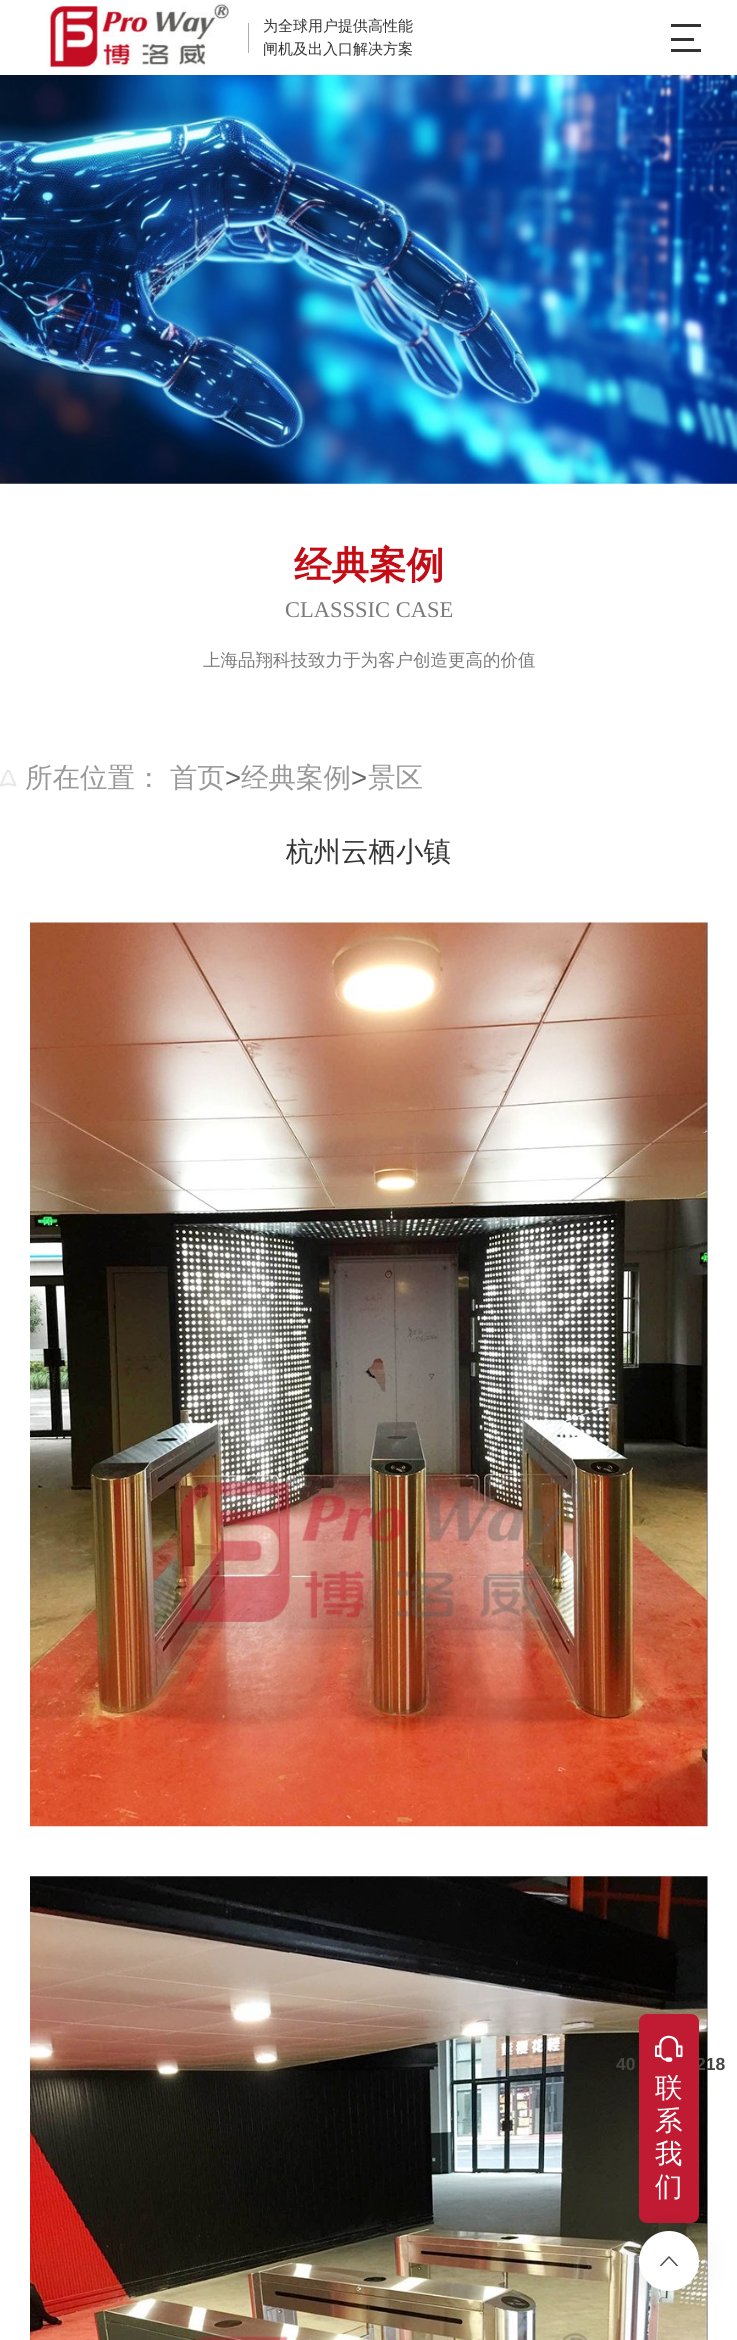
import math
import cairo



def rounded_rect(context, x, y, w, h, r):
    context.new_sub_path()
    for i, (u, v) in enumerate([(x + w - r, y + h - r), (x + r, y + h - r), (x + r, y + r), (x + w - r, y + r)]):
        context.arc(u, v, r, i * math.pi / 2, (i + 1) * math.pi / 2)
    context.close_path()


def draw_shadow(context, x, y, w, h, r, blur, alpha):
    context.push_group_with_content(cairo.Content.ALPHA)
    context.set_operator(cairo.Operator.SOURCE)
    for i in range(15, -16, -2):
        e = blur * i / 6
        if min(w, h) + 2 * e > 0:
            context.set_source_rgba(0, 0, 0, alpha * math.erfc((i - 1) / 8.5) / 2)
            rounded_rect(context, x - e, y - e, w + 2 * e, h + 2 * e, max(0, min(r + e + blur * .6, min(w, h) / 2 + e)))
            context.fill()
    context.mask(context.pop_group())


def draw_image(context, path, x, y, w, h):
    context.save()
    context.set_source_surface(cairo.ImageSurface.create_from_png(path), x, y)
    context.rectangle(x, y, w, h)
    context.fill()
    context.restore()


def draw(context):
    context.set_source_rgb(1, 1, 1)
    context.paint()
    draw_image(context, "images/1.png", 47, 3, 183, 72)
    context.set_source_rgb(173 / 255, 173 / 255, 173 / 255)
    context.rectangle(248, 23, 1, 30)
    context.fill()
    context.set_source_rgb(51 / 255, 51 / 255, 51 / 255)
    context.rectangle(671, 24, 30, 3)
    context.fill()
    context.rectangle(671, 38, 23, 3)
    context.fill()
    context.rectangle(671, 49, 30, 3)
    context.fill()
    draw_image(context, "images/2.png", 0, 75, 737, 409)
    draw_image(context, "images/3.png", 0, 770, 17, 17)
    draw_image(context, "images/4.png", 30, 922, 678, 905)
    draw_image(context, "images/5.png", 30, 1876, 678, 464)
    context.select_font_face("WenQuanYi Zen Hei Medium")
    context.set_font_size(15)
    context.move_to(263, 31)
    context.show_text("为全球用户提供高性能")
    context.move_to(263, 54)
    context.show_text("闸机及出入口解决方案")
    context.select_font_face("WenQuanYi Zen Hei", cairo.FontSlant.NORMAL, cairo.FontWeight.BOLD)
    context.set_font_size(37.5)
    context.set_source_rgb(197 / 255, 12 / 255, 21 / 255)
    context.move_to(294, 578)
    context.show_text("经典案例")
    context.select_font_face("Liberation Serif")
    context.set_font_size(22.5)
    context.set_source_rgb(123 / 255, 123 / 255, 123 / 255)
    context.move_to(285, 617)
    context.show_text("CLASSSIC CASE")
    context.select_font_face("WenQuanYi Zen Hei Medium")
    context.set_font_size(17.5)
    context.move_to(203, 666)
    context.show_text("上海品翔科技致力于为客户创造更高的价值")
    context.set_font_size(27.5)
    context.set_source_rgb(153 / 255, 153 / 255, 153 / 255)
    context.move_to(25, 787)
    context.show_text("所在位置：")
    context.move_to(170, 787)
    context.show_text("首页")
    context.select_font_face("Liberation Sans")
    context.set_source_rgb(102 / 255, 102 / 255, 102 / 255)
    context.move_to(225, 787)
    context.show_text(">")
    context.select_font_face("WenQuanYi Zen Hei Medium")
    context.set_source_rgb(153 / 255, 153 / 255, 153 / 255)
    context.move_to(241, 787)
    context.show_text("经典案例")
    context.select_font_face("Liberation Sans")
    context.set_source_rgb(102 / 255, 102 / 255, 102 / 255)
    context.move_to(351, 787)
    context.show_text(">")
    context.select_font_face("WenQuanYi Zen Hei Medium")
    context.set_source_rgb(153 / 255, 153 / 255, 153 / 255)
    context.move_to(368, 787)
    context.show_text("景区")
    context.set_source_rgb(51 / 255, 51 / 255, 51 / 255)
    context.move_to(286, 861)
    context.show_text("杭州云栖小镇")
    context.select_font_face("Liberation Sans", cairo.FontSlant.NORMAL, cairo.FontWeight.BOLD)
    context.set_font_size(17.5)
    context.set_source_rgb(70 / 255, 70 / 255, 64 / 255)
    context.move_to(616, 2070)
    context.show_text("40")
    context.move_to(696, 2070)
    context.show_text("218")
    context.set_source_rgb(193 / 255, 27 / 255, 51 / 255)
    rounded_rect(context, 639, 2014, 60, 209, 8)
    context.fill()
    draw_image(context, "images/6.png", 655, 2035, 28, 27)
    context.select_font_face("WenQuanYi Zen Hei Medium")
    context.set_font_size(27.5)
    context.set_source_rgb(1, 1, 1)
    context.move_to(655, 2097)
    context.show_text("联")
    context.move_to(655, 2130)
    context.show_text("系")
    context.move_to(655, 2163)
    context.show_text("我")
    context.move_to(655, 2196)
    context.show_text("们")
    context.set_source_rgb(0, 0, 0)
    draw_shadow(context, 639, 2231, 60, 60, 30, 15, 0.1)
    context.set_source_rgb(1, 1, 1)
    context.arc(669, 2261, 30, 0, 2 * math.pi)
    context.fill()
    draw_image(context, "images/7.png", 660, 2256, 18, 10)


surface = cairo.ImageSurface(cairo.Format.RGB24, 737, 2340)
context = cairo.Context(surface)
options = cairo.FontOptions()
options.set_hint_metrics(cairo.HintMetrics.OFF)
options.set_hint_style(cairo.HintStyle.NONE)
context.set_font_options(options)
context.set_miter_limit(4)
draw(context)
surface.write_to_png("out.png")
